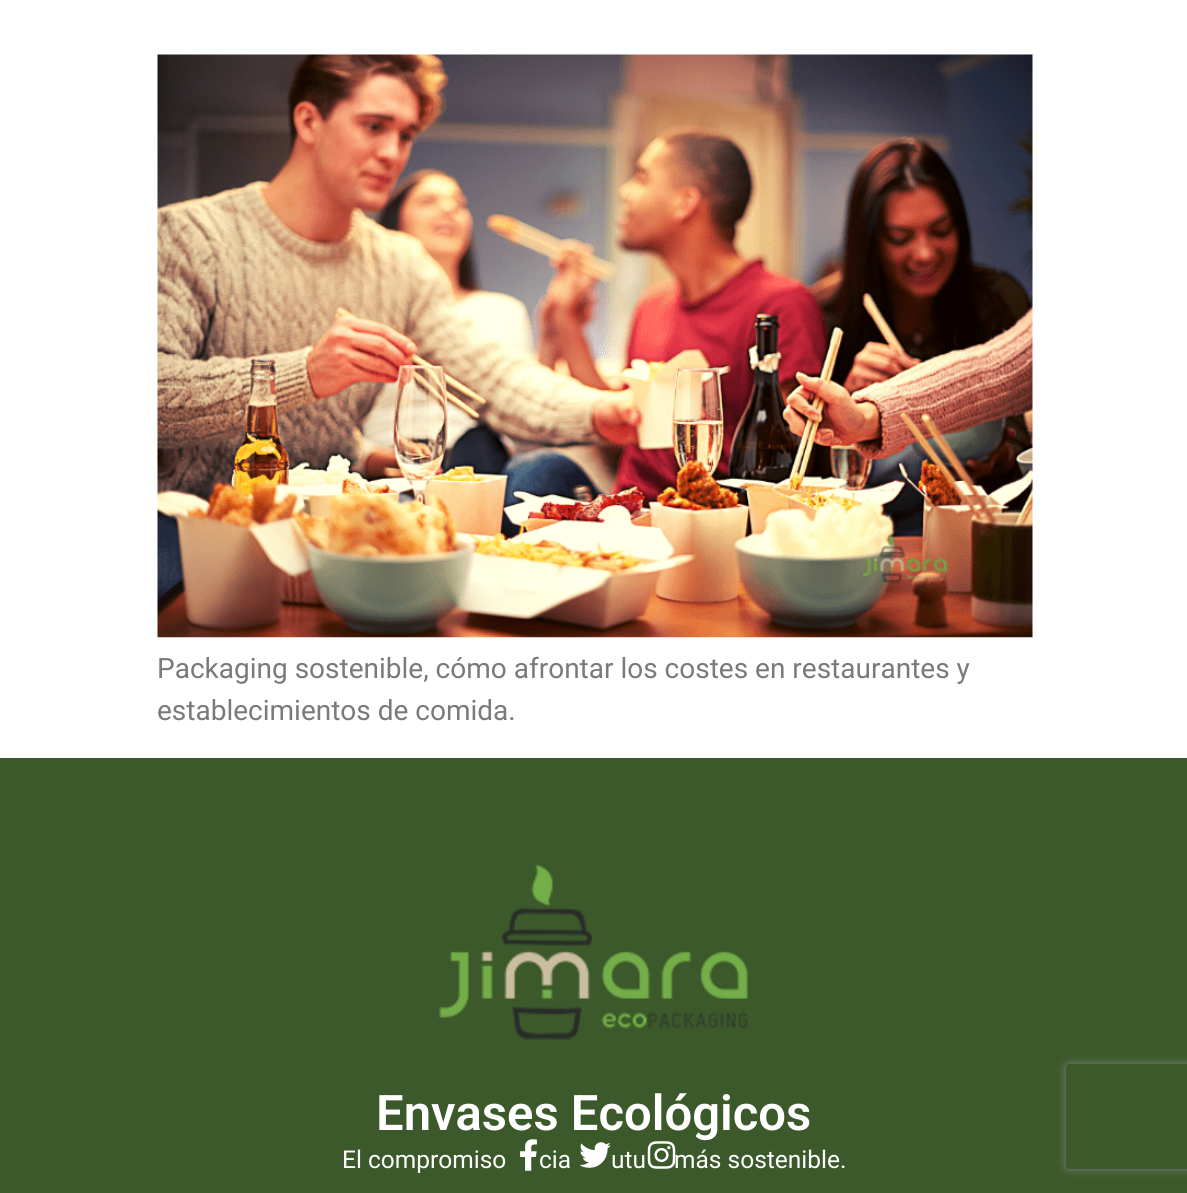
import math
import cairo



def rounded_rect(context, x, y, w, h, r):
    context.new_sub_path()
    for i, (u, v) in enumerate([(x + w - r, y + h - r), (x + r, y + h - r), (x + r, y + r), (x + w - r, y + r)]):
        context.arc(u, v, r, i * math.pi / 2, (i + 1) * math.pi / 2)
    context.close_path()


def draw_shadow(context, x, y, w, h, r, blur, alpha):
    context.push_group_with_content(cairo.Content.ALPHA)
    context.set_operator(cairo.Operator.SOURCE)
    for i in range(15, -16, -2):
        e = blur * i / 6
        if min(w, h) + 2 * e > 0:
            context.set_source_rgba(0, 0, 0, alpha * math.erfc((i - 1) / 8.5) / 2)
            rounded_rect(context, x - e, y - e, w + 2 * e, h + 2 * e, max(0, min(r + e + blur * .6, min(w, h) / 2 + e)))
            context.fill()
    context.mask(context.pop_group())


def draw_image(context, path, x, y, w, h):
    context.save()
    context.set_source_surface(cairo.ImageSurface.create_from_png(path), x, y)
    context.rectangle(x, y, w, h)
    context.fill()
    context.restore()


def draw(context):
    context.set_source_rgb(1, 1, 1)
    context.paint()
    draw_image(context, "images/1.png", 157, 54, 876, 584)
    context.set_source_rgb(59 / 255, 89 / 255, 42 / 255)
    context.rectangle(0, 758, 1187, 435)
    context.fill()
    draw_image(context, "images/2.png", 439, 864, 309, 176)
    draw_image(context, "images/4.png", 580, 1142, 31, 26)
    context.save()
    context.set_fill_rule(cairo.FillRule.EVEN_ODD)
    context.new_path()
    context.move_to(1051, 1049)
    context.line_to(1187, 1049)
    context.line_to(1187, 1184)
    context.line_to(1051, 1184)
    context.close_path()
    context.move_to(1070, 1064)
    context.line_to(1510, 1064)
    context.curve_to(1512, 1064, 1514, 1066, 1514, 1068)
    context.line_to(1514, 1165)
    context.curve_to(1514, 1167, 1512, 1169, 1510, 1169)
    context.line_to(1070, 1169)
    context.curve_to(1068, 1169, 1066, 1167, 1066, 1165)
    context.line_to(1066, 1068)
    context.curve_to(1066, 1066, 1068, 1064, 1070, 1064)
    context.close_path()
    context.clip()
    context.set_source_rgb(128 / 255, 128 / 255, 128 / 255)
    draw_shadow(context, 1066, 1064, 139, 105, 4, 4.5, 1)
    context.restore()
    context.select_font_face("Roboto")
    context.set_font_size(28)
    context.set_source_rgb(122 / 255, 122 / 255, 122 / 255)
    context.move_to(157, 678)
    context.show_text("Packaging sostenible, cómo afrontar los costes en restaurantes y")
    context.move_to(157, 720)
    context.show_text("establecimientos de comida.")
    context.select_font_face("Roboto SemiBold")
    context.set_font_size(49)
    context.set_source_rgb(1, 1, 1)
    context.move_to(376, 1130)
    context.show_text("Envases Ecológicos")
    context.select_font_face("Roboto")
    context.set_font_size(24.5)
    context.move_to(342, 1168)
    context.show_text("El compromiso")
    context.move_to(539, 1168)
    context.show_text("cia")
    context.move_to(611, 1168)
    context.show_text("utu")
    context.move_to(674, 1168)
    context.show_text("más sostenible.")
    draw_image(context, "images/3.png", 520, 1139, 17, 32)
    draw_image(context, "images/5.png", 647, 1141, 29, 28)


surface = cairo.ImageSurface(cairo.Format.RGB24, 1187, 1193)
context = cairo.Context(surface)
options = cairo.FontOptions()
options.set_hint_metrics(cairo.HintMetrics.OFF)
options.set_hint_style(cairo.HintStyle.NONE)
context.set_font_options(options)
context.set_miter_limit(4)
draw(context)
surface.write_to_png("out.png")
